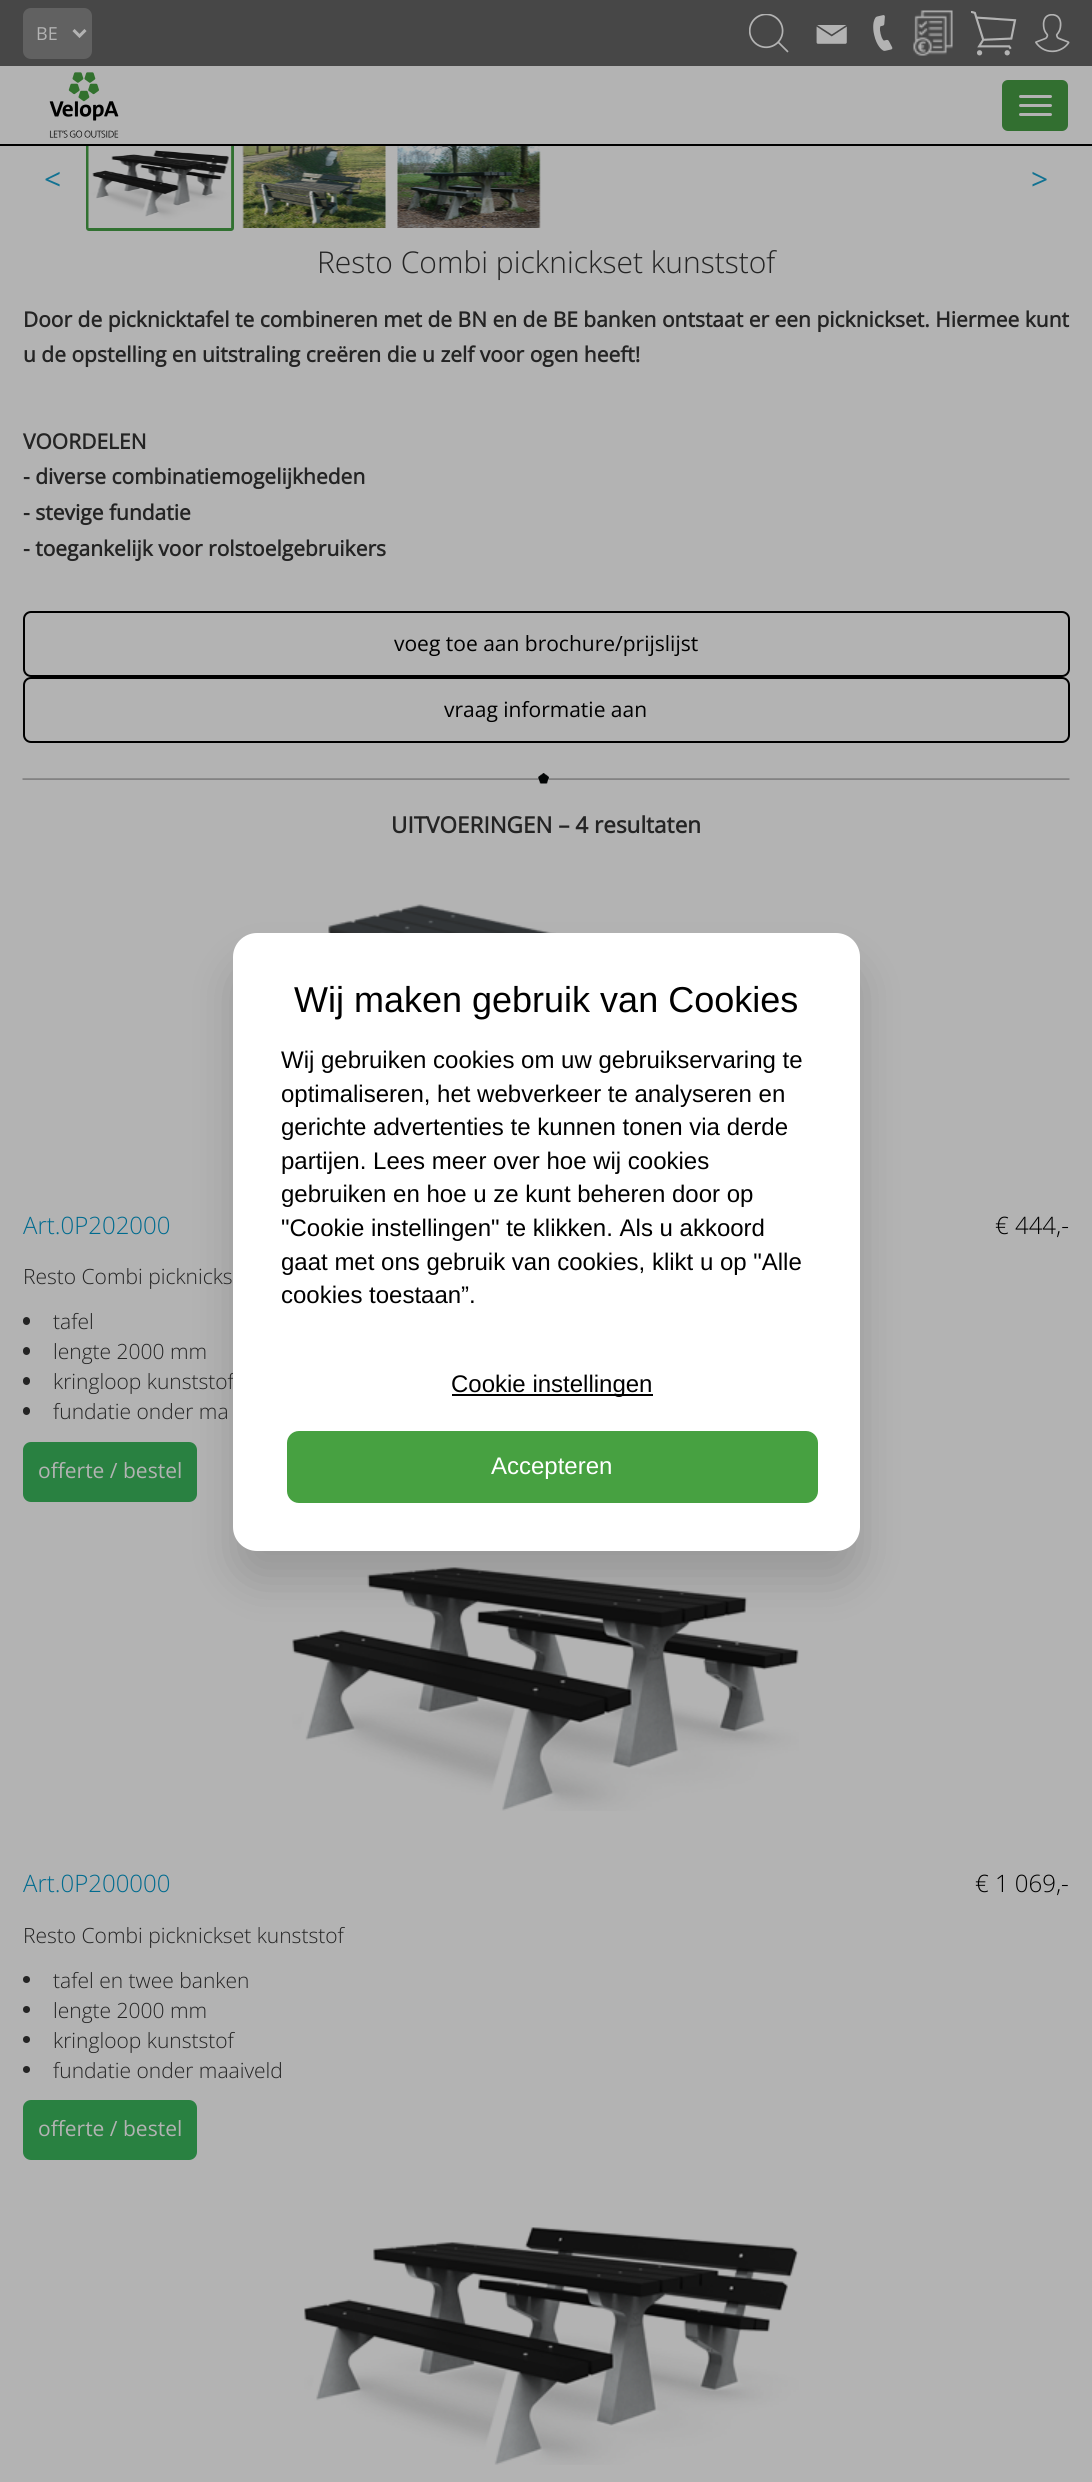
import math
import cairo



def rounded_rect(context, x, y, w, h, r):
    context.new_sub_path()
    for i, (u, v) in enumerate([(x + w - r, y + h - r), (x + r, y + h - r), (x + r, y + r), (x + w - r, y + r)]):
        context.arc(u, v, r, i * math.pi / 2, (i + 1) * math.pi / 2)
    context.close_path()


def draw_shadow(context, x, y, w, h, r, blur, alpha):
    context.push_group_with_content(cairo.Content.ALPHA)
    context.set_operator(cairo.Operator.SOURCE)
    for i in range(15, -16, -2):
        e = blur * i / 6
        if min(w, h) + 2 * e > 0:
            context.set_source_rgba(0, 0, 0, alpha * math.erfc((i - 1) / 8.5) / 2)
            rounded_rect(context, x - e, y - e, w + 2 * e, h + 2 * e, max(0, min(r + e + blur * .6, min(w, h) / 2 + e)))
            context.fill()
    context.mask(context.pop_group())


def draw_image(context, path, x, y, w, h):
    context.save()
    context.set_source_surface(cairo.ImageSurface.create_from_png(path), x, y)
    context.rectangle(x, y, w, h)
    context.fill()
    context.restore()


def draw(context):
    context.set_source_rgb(179 / 255, 179 / 255, 179 / 255)
    context.paint()
    rounded_rect(context, 87.5, 136.5, 145, 93, 1.5)
    context.set_source_rgb(49 / 255, 113 / 255, 49 / 255)
    context.set_line_width(3)
    context.stroke()
    context.set_source_rgb(179 / 255, 179 / 255, 179 / 255)
    context.rectangle(86, 135, 148, 9)
    context.fill()
    context.set_source_rgb(71 / 255, 71 / 255, 71 / 255)
    context.rectangle(0, 0, 1092, 66)
    context.fill()
    context.set_source_rgb(97 / 255, 97 / 255, 97 / 255)
    rounded_rect(context, 23, 8, 69, 51, 8)
    context.fill()
    context.new_path()
    context.move_to(73.5, 30)
    context.line_to(79.5, 36)
    context.line_to(85.5, 30)
    context.set_source_rgb(179 / 255, 179 / 255, 179 / 255)
    context.stroke()
    draw_image(context, "images/1.png", 749, 14, 40, 39)
    draw_image(context, "images/2.png", 816, 25, 31, 19)
    draw_image(context, "images/3.png", 873, 15, 20, 36)
    draw_image(context, "images/4.png", 913, 10, 40, 46)
    draw_image(context, "images/5.png", 971, 11, 46, 45)
    draw_image(context, "images/6.png", 1035, 14, 35, 39)
    context.set_source_rgb(0, 0, 0)
    context.rectangle(0, 144, 1092, 2)
    context.fill()
    draw_image(context, "images/7.png", 49, 72, 70, 66)
    context.set_source_rgb(50 / 255, 111 / 255, 48 / 255)
    rounded_rect(context, 1002, 80, 66, 51, 6)
    context.fill()
    context.set_source_rgb(179 / 255, 179 / 255, 179 / 255)
    rounded_rect(context, 1019, 95, 33, 3, 1.5)
    context.fill()
    rounded_rect(context, 1019, 104, 33, 3, 1.5)
    context.fill()
    rounded_rect(context, 1019, 113, 33, 3, 1.5)
    context.fill()
    draw_image(context, "images/8.png", 88, 146, 144, 82)
    draw_image(context, "images/9.png", 242, 146, 144, 82)
    draw_image(context, "images/10.png", 397, 146, 144, 82)
    rounded_rect(context, 24, 612, 1045, 64, 7)
    context.set_source_rgb(0, 0, 0)
    context.set_line_width(2)
    context.stroke()
    rounded_rect(context, 24, 678, 1045, 64, 7)
    context.stroke()
    draw_image(context, "images/11.png", 22, 773, 1048, 11)
    draw_image(context, "images/12.png", 328, 904, 228, 29)
    context.set_source_rgb(36 / 255, 36 / 255, 36 / 255)
    rounded_rect(context, 23, 1317, 7, 8, 3.5)
    context.fill()
    rounded_rect(context, 23, 1347, 7, 8, 3.5)
    context.fill()
    rounded_rect(context, 23, 1377, 7, 8, 3.5)
    context.fill()
    rounded_rect(context, 23, 1407, 7, 8, 3.5)
    context.fill()
    context.set_source_rgb(41 / 255, 129 / 255, 65 / 255)
    rounded_rect(context, 23, 1442, 174, 60, 8)
    context.fill()
    draw_image(context, "images/13.png", 292, 1567, 507, 244)
    context.set_source_rgb(36 / 255, 36 / 255, 36 / 255)
    context.arc(26.5, 1979.5, 3.5, 0, 2 * math.pi)
    context.fill()
    context.arc(26.5, 2009.5, 3.5, 0, 2 * math.pi)
    context.fill()
    context.arc(26.5, 2039.5, 3.5, 0, 2 * math.pi)
    context.fill()
    context.arc(26.5, 2069.5, 3.5, 0, 2 * math.pi)
    context.fill()
    context.set_source_rgb(41 / 255, 129 / 255, 65 / 255)
    rounded_rect(context, 23, 2100, 174, 60, 8)
    context.fill()
    draw_image(context, "images/14.png", 304, 2227, 495, 238)
    context.set_source_rgb(0, 0, 0)
    draw_shadow(context, 233, 963, 627, 618, 24, 22.5, 0.15)
    context.select_font_face("Open Sans")
    context.set_font_size(18)
    context.set_source_rgb(179 / 255, 179 / 255, 179 / 255)
    context.move_to(36, 40)
    context.show_text("BE")
    context.set_font_size(30)
    context.set_source_rgb(18 / 255, 114 / 255, 146 / 255)
    context.move_to(44, 190)
    context.show_text("<")
    context.move_to(1031, 190)
    context.show_text(">")
    context.select_font_face("Open Sans Light")
    context.set_source_rgb(36 / 255, 36 / 255, 36 / 255)
    context.move_to(317, 273)
    context.show_text("Resto Combi picknickset kunststof")
    context.select_font_face("Open Sans", cairo.FontSlant.NORMAL, cairo.FontWeight.BOLD)
    context.set_font_size(21)
    context.move_to(23, 327)
    context.show_text("Door de picknicktafel te combineren met de BN en de BE banken ontstaat er een picknickset. Hiermee kunt")
    context.move_to(23, 362)
    context.show_text("u de opstelling en uitstraling creëren die u zelf voor ogen heeft!")
    context.move_to(23, 449)
    context.show_text("VOORDELEN")
    context.move_to(23, 484)
    context.show_text("- diverse combinatiemogelijkheden")
    context.move_to(23, 520)
    context.show_text("- stevige fundatie")
    context.move_to(23, 556)
    context.show_text("- toegankelijk voor rolstoelgebruikers")
    context.select_font_face("Open Sans")
    context.set_source_rgb(0, 0, 0)
    context.move_to(394, 651)
    context.show_text("voeg toe aan brochure/prijslijst")
    context.move_to(444, 717)
    context.show_text("vraag informatie aan")
    context.select_font_face("Open Sans", cairo.FontSlant.NORMAL, cairo.FontWeight.BOLD)
    context.set_font_size(22.5)
    context.set_source_rgb(36 / 255, 36 / 255, 36 / 255)
    context.move_to(391, 833)
    context.show_text("UITVOERINGEN – 4 resultaten")
    context.select_font_face("Open Sans Light")
    context.set_font_size(24)
    context.set_source_rgb(0, 107 / 255, 143 / 255)
    context.move_to(23, 1234)
    context.show_text("Art.0P202000")
    context.set_source_rgb(0, 0, 0)
    context.move_to(995, 1234)
    context.show_text("€ 444,-")
    context.set_font_size(21)
    context.set_source_rgb(36 / 255, 36 / 255, 36 / 255)
    context.move_to(23, 1284)
    context.show_text("Resto Combi picknicks")
    context.move_to(53, 1329)
    context.show_text("tafel")
    context.move_to(53, 1359)
    context.show_text("lengte 2000 mm")
    context.move_to(53, 1389)
    context.show_text("kringloop kunststof")
    context.move_to(53, 1419)
    context.show_text("fundatie onder ma")
    context.select_font_face("Open Sans")
    context.set_source_rgb(179 / 255, 179 / 255, 179 / 255)
    context.move_to(38, 1478)
    context.show_text("offerte / bestel")
    context.select_font_face("Open Sans Light")
    context.set_font_size(24)
    context.set_source_rgb(0, 107 / 255, 143 / 255)
    context.move_to(23, 1892)
    context.show_text("Art.0P200000")
    context.set_source_rgb(0, 0, 0)
    context.move_to(975, 1892)
    context.show_text("€ 1 069,-")
    context.set_font_size(21)
    context.set_source_rgb(36 / 255, 36 / 255, 36 / 255)
    context.move_to(23, 1943)
    context.show_text("Resto Combi picknickset kunststof")
    context.move_to(53, 1988)
    context.show_text("tafel en twee banken")
    context.move_to(53, 2018)
    context.show_text("lengte 2000 mm")
    context.move_to(53, 2048)
    context.show_text("kringloop kunststof")
    context.move_to(53, 2078)
    context.show_text("fundatie onder maaiveld")
    context.select_font_face("Open Sans")
    context.set_source_rgb(179 / 255, 179 / 255, 179 / 255)
    context.move_to(38, 2136)
    context.show_text("offerte / bestel")
    context.set_source_rgb(1, 1, 1)
    rounded_rect(context, 233, 933, 627, 618, 24)
    context.fill()
    context.select_font_face("Liberation Sans")
    context.set_font_size(36)
    context.set_source_rgb(0, 0, 0)
    context.move_to(294, 1012)
    context.show_text("Wij maken gebruik van Cookies")
    context.set_font_size(24)
    context.move_to(281, 1068)
    context.show_text("Wij gebruiken cookies om uw gebruikservaring te")
    context.move_to(281, 1102)
    context.show_text("optimaliseren, het webverkeer te analyseren en")
    context.move_to(281, 1135)
    context.show_text("gerichte advertenties te kunnen tonen via derde")
    context.move_to(281, 1169)
    context.show_text("partijen. Lees meer over hoe wij cookies")
    context.move_to(281, 1202)
    context.show_text("gebruiken en hoe u ze kunt beheren door op")
    context.move_to(281, 1236)
    context.show_text("\"Cookie instellingen\" te klikken. Als u akkoord")
    context.move_to(281, 1270)
    context.show_text("gaat met ons gebruik van cookies, klikt u op \"Alle")
    context.move_to(281, 1303)
    context.show_text("cookies toestaan”.")
    context.rectangle(452, 1394, 201, 2)
    context.fill()
    context.move_to(451, 1392)
    context.show_text("Cookie instellingen")
    context.set_source_rgb(71 / 255, 161 / 255, 65 / 255)
    rounded_rect(context, 288.5, 1432.5, 528, 69, 10.5)
    context.fill_preserve()
    context.set_line_width(3)
    context.stroke()
    context.set_source_rgb(1, 1, 1)
    context.move_to(491, 1474)
    context.show_text("Accepteren")


surface = cairo.ImageSurface(cairo.Format.RGB24, 1092, 2482)
context = cairo.Context(surface)
options = cairo.FontOptions()
options.set_hint_metrics(cairo.HintMetrics.OFF)
options.set_hint_style(cairo.HintStyle.NONE)
context.set_font_options(options)
context.set_miter_limit(4)
draw(context)
surface.write_to_png("out.png")
